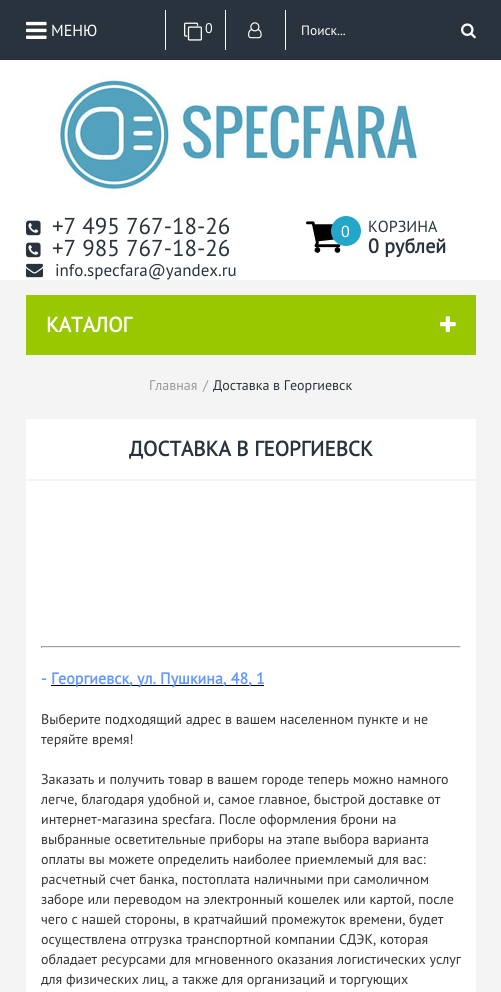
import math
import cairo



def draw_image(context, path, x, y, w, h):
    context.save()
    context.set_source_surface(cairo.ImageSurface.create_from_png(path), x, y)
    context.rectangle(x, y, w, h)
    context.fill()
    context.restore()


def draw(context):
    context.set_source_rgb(1, 1, 1)
    context.paint()
    context.set_source_rgb(41 / 255, 51 / 255, 61 / 255)
    context.rectangle(0, 0, 501, 60)
    context.fill()
    draw_image(context, "images/1.png", 26, 21, 21, 18)
    context.set_source_rgb(1, 1, 1)
    context.rectangle(165, 10, 1, 40)
    context.fill()
    draw_image(context, "images/2.png", 184, 22, 18, 19)
    context.rectangle(225, 10, 1, 40)
    context.fill()
    draw_image(context, "images/3.png", 248, 22, 14, 17)
    context.rectangle(285, 10, 1, 40)
    context.fill()
    draw_image(context, "images/4.png", 461, 23, 15, 16)
    draw_image(context, "images/5.png", 59, 75, 360, 120)
    draw_image(context, "images/6.png", 26, 220, 15, 16)
    draw_image(context, "images/6.png", 26, 242, 15, 16)
    draw_image(context, "images/7.png", 26, 263, 17, 15)
    draw_image(context, "images/8.png", 306, 221, 35, 32)
    context.set_source_rgb(36 / 255, 166 / 255, 203 / 255)
    context.arc(346, 231, 15, 0, 2 * math.pi)
    context.fill()
    context.set_source_rgb(244 / 255, 244 / 255, 244 / 255)
    context.rectangle(0, 280, 501, 712)
    context.fill()
    context.set_source_rgb(153 / 255, 200 / 255, 0)
    context.rectangle(26, 295, 450, 60)
    context.fill()
    draw_image(context, "images/9.png", 440, 316, 16, 16)
    context.set_source_rgb(1, 1, 1)
    context.rectangle(26, 419, 450, 573)
    context.fill()
    context.set_source_rgb(244 / 255, 244 / 255, 244 / 255)
    context.rectangle(26, 479, 450, 2)
    context.fill()
    context.set_source_rgb(159 / 255, 159 / 255, 159 / 255)
    context.rectangle(41, 646, 420, 1)
    context.fill()
    context.set_source_rgb(238 / 255, 238 / 255, 238 / 255)
    context.rectangle(460, 646, 1, 2)
    context.fill()
    context.rectangle(41, 647, 420, 1)
    context.fill()
    context.set_source_rgb(159 / 255, 159 / 255, 159 / 255)
    context.rectangle(41, 646, 1, 2)
    context.fill()
    context.set_source_rgb(0, 0, 0)
    context.rectangle(51, 685, 213, 1)
    context.fill()
    context.select_font_face("PT Sans")
    context.set_font_size(16)
    context.set_source_rgb(1, 1, 1)
    context.move_to(51, 36)
    context.show_text("МЕНЮ")
    context.set_font_size(14)
    context.move_to(205, 33)
    context.show_text("0")
    context.set_font_size(13.5)
    context.move_to(301, 35)
    context.show_text("Поиск...")
    context.set_font_size(23)
    context.set_source_rgb(41 / 255, 51 / 255, 61 / 255)
    context.move_to(52, 234)
    context.show_text("+7 495 767-18-26")
    context.move_to(52, 256)
    context.show_text("+7 985 767-18-26")
    context.set_font_size(17)
    context.move_to(55, 276)
    context.show_text("info.specfara@yandex.ru")
    context.set_font_size(16)
    context.set_source_rgb(1, 1, 1)
    context.move_to(341, 237)
    context.show_text("0")
    context.set_source_rgb(41 / 255, 51 / 255, 61 / 255)
    context.move_to(368, 232)
    context.show_text("КОРЗИНА")
    context.select_font_face("PT Sans", cairo.FontSlant.NORMAL, cairo.FontWeight.BOLD)
    context.set_font_size(20)
    context.move_to(368, 253)
    context.show_text("0 рублей")
    context.set_font_size(21)
    context.set_source_rgb(1, 1, 1)
    context.move_to(46, 332)
    context.show_text("КАТАЛОГ")
    context.select_font_face("PT Sans")
    context.set_font_size(14)
    context.set_source_rgb(153 / 255, 153 / 255, 153 / 255)
    context.move_to(149, 390)
    context.show_text("Главная")
    context.move_to(203, 390)
    context.show_text("/")
    context.save()
    context.rectangle(213, 355, 139, 60)
    context.clip()
    context.set_source_rgb(41 / 255, 51 / 255, 61 / 255)
    context.move_to(213, 390)
    context.show_text("Доставка в Георгиевск")
    context.restore()
    context.select_font_face("PT Sans", cairo.FontSlant.NORMAL, cairo.FontWeight.BOLD)
    context.set_font_size(21)
    context.set_source_rgb(41 / 255, 51 / 255, 61 / 255)
    context.move_to(129, 456)
    context.show_text("ДОСТАВКА В ГЕОРГИЕВСК")
    context.set_font_size(16)
    context.set_source_rgb(102 / 255, 153 / 255, 1)
    context.move_to(41, 684)
    context.show_text("-")
    context.move_to(51, 684)
    context.show_text("Георгиевск, ул. Пушкина, 48, 1")
    context.select_font_face("PT Sans")
    context.set_font_size(14)
    context.set_source_rgb(51 / 255, 51 / 255, 51 / 255)
    context.move_to(41, 724)
    context.show_text("Выберите подходящий адрес в вашем населенном пункте и не")
    context.move_to(41, 744)
    context.show_text("теряйте время!")
    context.move_to(41, 784)
    context.show_text("Заказать и получить товар в вашем городе теперь можно намного")
    context.move_to(41, 804)
    context.show_text("легче, благодаря удобной и, самое главное, быстрой доставке от")
    context.move_to(41, 824)
    context.show_text("интернет-магазина specfara. После оформления брони на")
    context.move_to(41, 844)
    context.show_text("выбранные осветительные приборы на этапе выбора варианта")
    context.move_to(41, 864)
    context.show_text("оплаты вы можете определить наиболее приемлемый для вас:")
    context.move_to(41, 884)
    context.show_text("расчетный счет банка, постоплата наличными при самоличном")
    context.move_to(41, 904)
    context.show_text("заборе или переводом на электронный кошелек или картой, после")
    context.move_to(41, 924)
    context.show_text("чего с нашей стороны, в кратчайший промежуток времени, будет")
    context.move_to(41, 944)
    context.show_text("осуществлена отгрузка транспортной компании СДЭК, которая")
    context.move_to(41, 964)
    context.show_text("обладает ресурсами для мгновенного оказания логистических услуг")
    context.move_to(41, 984)
    context.show_text("для физических лиц, а также для организаций и торгующих")


surface = cairo.ImageSurface(cairo.Format.RGB24, 501, 992)
context = cairo.Context(surface)
options = cairo.FontOptions()
options.set_hint_metrics(cairo.HintMetrics.OFF)
options.set_hint_style(cairo.HintStyle.NONE)
context.set_font_options(options)
context.set_miter_limit(4)
draw(context)
surface.write_to_png("out.png")
